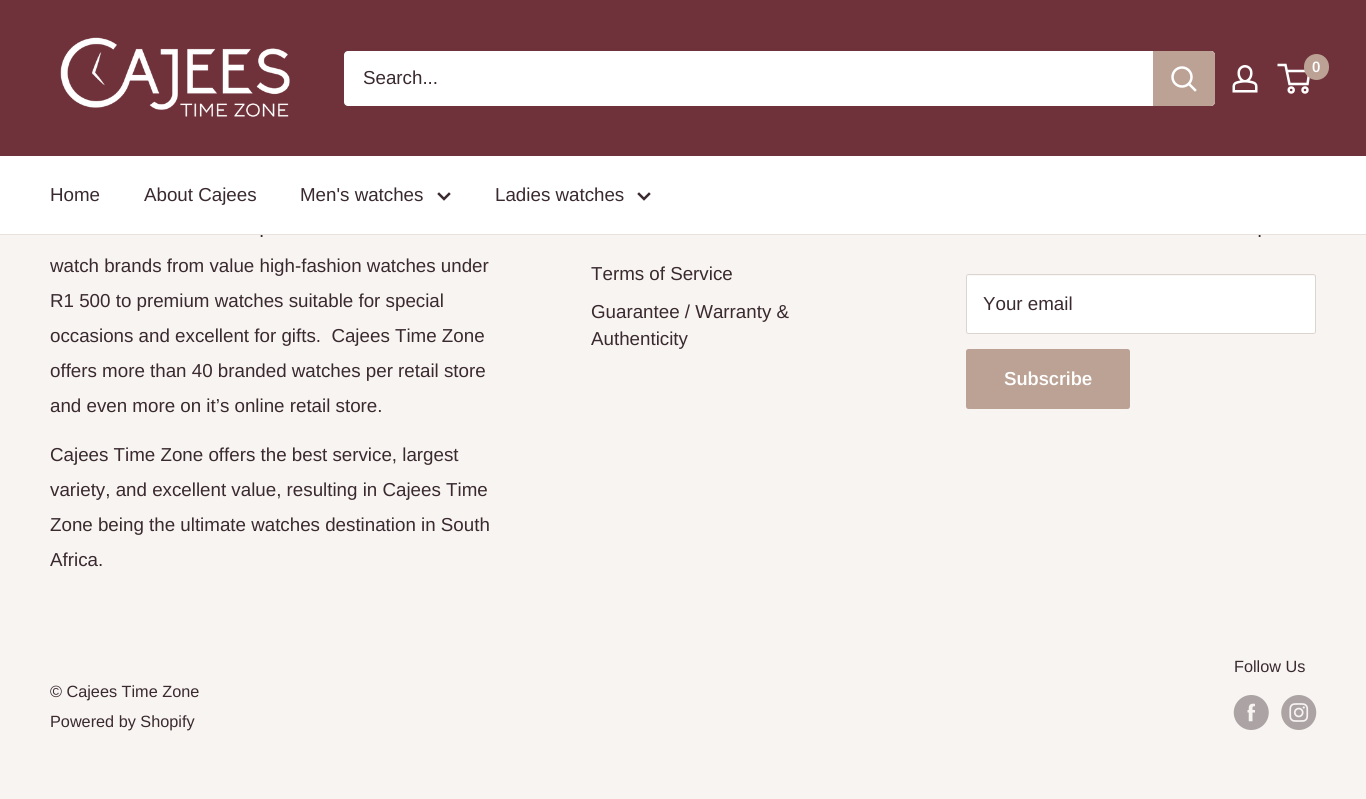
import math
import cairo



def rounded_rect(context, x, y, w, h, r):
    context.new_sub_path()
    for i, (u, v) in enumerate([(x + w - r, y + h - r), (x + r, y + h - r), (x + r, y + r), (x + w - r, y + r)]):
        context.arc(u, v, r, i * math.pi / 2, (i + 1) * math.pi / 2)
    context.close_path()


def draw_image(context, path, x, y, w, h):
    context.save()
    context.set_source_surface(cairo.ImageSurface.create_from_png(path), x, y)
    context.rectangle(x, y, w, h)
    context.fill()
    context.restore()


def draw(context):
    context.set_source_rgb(247 / 255, 244 / 255, 242 / 255)
    context.paint()
    context.set_source_rgb(111 / 255, 50 / 255, 58 / 255)
    context.rectangle(0, 0, 1366, 156)
    context.fill()
    draw_image(context, "images/1.png", 60, 37, 230, 80)
    draw_image(context, "images/2.png", 1232, 65, 26, 28)
    context.arc(1291.2, 90, 2.5, 0, 2 * math.pi)
    context.set_source_rgb(1, 1, 1)
    context.set_line_width(2.5)
    context.stroke()
    context.arc(1305, 90, 2.5, 0, 2 * math.pi)
    context.stroke()
    context.new_path()
    context.move_to(1286.5, 71)
    context.line_to(1309.5, 71)
    context.line_to(1307.5, 84)
    context.line_to(1289.5, 84)
    context.line_to(1285.5, 65)
    context.line_to(1277.5, 65)
    context.stroke()
    context.set_source_rgb(188 / 255, 162 / 255, 149 / 255)
    rounded_rect(context, 1304, 54, 25, 26, 12.5)
    context.fill()
    context.set_source_rgb(1, 1, 1)
    rounded_rect(context, 344, 51, 871, 55, 4)
    context.fill()
    context.set_source_rgb(188 / 255, 162 / 255, 149 / 255)
    context.new_path()
    context.move_to(1153, 51)
    context.line_to(1211, 51)
    context.curve_to(1213, 51, 1215, 53, 1215, 55)
    context.line_to(1215, 102)
    context.curve_to(1215, 104, 1213, 106, 1211, 106)
    context.line_to(1153, 106)
    context.close_path()
    context.fill()
    context.new_path()
    context.move_to(1195, 90)
    context.line_to(1189, 84)
    context.set_source_rgb(1, 1, 1)
    context.set_line_cap(cairo.LineCap.SQUARE)
    context.stroke()
    context.arc(1182, 77, 9.5, 0, 2 * math.pi)
    context.set_line_cap(cairo.LineCap.BUTT)
    context.stroke()
    context.rectangle(0, 156, 1366, 78)
    context.fill()
    context.new_path()
    context.move_to(449, 194)
    context.line_to(444, 199)
    context.line_to(439, 194)
    context.set_source_rgb(58 / 255, 42 / 255, 47 / 255)
    context.set_line_cap(cairo.LineCap.SQUARE)
    context.stroke()
    context.new_path()
    context.move_to(649, 194)
    context.line_to(644, 199)
    context.line_to(639, 194)
    context.stroke()
    context.set_source_rgb(1, 1, 1)
    rounded_rect(context, 966, 274, 350, 60, 2.5)
    context.fill()
    context.set_source_rgb(249 / 255, 248 / 255, 247 / 255)
    context.new_path()
    context.move_to(969, 276)
    context.line_to(1314, 276)
    context.line_to(1315, 278)
    context.line_to(1315, 275)
    context.line_to(969, 275)
    context.curve_to(968, 275, 968, 277, 968, 278)
    context.curve_to(968, 277, 968, 276, 969, 276)
    context.close_path()
    context.fill()
    rounded_rect(context, 966.5, 274.5, 349, 59, 2)
    context.set_source_rgb(220 / 255, 213 / 255, 207 / 255)
    context.set_line_width(1)
    context.set_line_cap(cairo.LineCap.BUTT)
    context.stroke()
    context.set_source_rgb(188 / 255, 162 / 255, 149 / 255)
    rounded_rect(context, 966, 349, 164, 60, 2.5)
    context.fill()
    draw_image(context, "images/3.png", 1233, 695, 36, 35)
    draw_image(context, "images/4.png", 1281, 695, 36, 35)
    context.select_font_face("Arimo SemiBold")
    context.set_font_size(15)
    context.set_source_rgb(1, 1, 1)
    context.move_to(1312, 72)
    context.show_text("0")
    context.select_font_face("Arimo")
    context.set_font_size(18.75)
    context.set_source_rgb(58 / 255, 42 / 255, 47 / 255)
    context.move_to(363, 84)
    context.show_text("Search...")
    context.move_to(50, 201)
    context.show_text("Home")
    context.move_to(144, 201)
    context.show_text("About Cajees")
    context.move_to(300, 201)
    context.show_text("Men's watches")
    context.move_to(495, 201)
    context.show_text("Ladies watches")
    context.move_to(259, 237)
    context.show_text(".")
    context.move_to(50, 272)
    context.show_text("watch brands from value high-fashion watches under")
    context.move_to(50, 307)
    context.show_text("R1 500 to premium watches suitable for special")
    context.move_to(50, 342)
    context.show_text("occasions and excellent for gifts.  Cajees Time Zone")
    context.move_to(50, 377)
    context.show_text("offers more than 40 branded watches per retail store")
    context.move_to(50, 412)
    context.show_text("and even more on it’s online retail store.")
    context.move_to(50, 461)
    context.show_text("Cajees Time Zone offers the best service, largest")
    context.move_to(50, 496)
    context.show_text("variety, and excellent value, resulting in Cajees Time")
    context.move_to(50, 531)
    context.show_text("Zone being the ultimate watches destination in South")
    context.move_to(50, 566)
    context.show_text("Africa.")
    context.move_to(591, 280)
    context.show_text("Terms of Service")
    context.move_to(591, 318)
    context.show_text("Guarantee / Warranty &")
    context.move_to(591, 345)
    context.show_text("Authenticity")
    context.move_to(1257, 237)
    context.show_text(".")
    context.set_source_rgb(231 / 255, 226 / 255, 222 / 255)
    context.rectangle(0, 234, 1366, 1)
    context.fill()
    context.set_source_rgb(58 / 255, 42 / 255, 47 / 255)
    context.move_to(983, 310)
    context.show_text("Your email")
    context.select_font_face("Arimo SemiBold")
    context.set_source_rgb(1, 1, 1)
    context.move_to(1004, 385)
    context.show_text("Subscribe")
    context.select_font_face("Arimo")
    context.set_font_size(16.25)
    context.set_source_rgb(58 / 255, 42 / 255, 47 / 255)
    context.move_to(1234, 672)
    context.show_text("Follow Us")
    context.move_to(50, 697)
    context.show_text("© Cajees Time Zone")
    context.move_to(50, 727)
    context.show_text("Powered by Shopify")


surface = cairo.ImageSurface(cairo.Format.RGB24, 1366, 799)
context = cairo.Context(surface)
options = cairo.FontOptions()
options.set_hint_metrics(cairo.HintMetrics.OFF)
options.set_hint_style(cairo.HintStyle.NONE)
context.set_font_options(options)
context.set_miter_limit(4)
draw(context)
surface.write_to_png("out.png")
